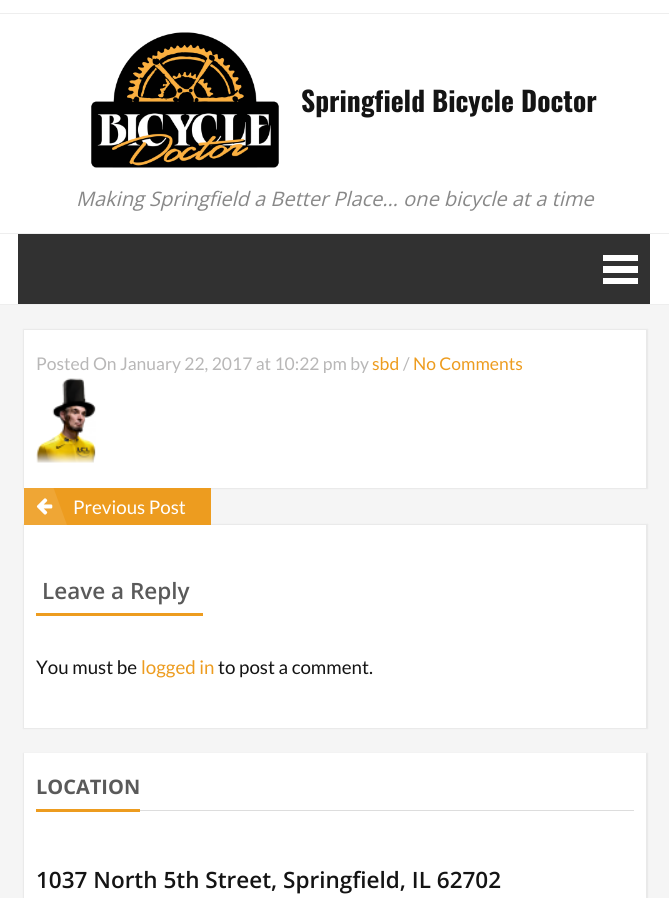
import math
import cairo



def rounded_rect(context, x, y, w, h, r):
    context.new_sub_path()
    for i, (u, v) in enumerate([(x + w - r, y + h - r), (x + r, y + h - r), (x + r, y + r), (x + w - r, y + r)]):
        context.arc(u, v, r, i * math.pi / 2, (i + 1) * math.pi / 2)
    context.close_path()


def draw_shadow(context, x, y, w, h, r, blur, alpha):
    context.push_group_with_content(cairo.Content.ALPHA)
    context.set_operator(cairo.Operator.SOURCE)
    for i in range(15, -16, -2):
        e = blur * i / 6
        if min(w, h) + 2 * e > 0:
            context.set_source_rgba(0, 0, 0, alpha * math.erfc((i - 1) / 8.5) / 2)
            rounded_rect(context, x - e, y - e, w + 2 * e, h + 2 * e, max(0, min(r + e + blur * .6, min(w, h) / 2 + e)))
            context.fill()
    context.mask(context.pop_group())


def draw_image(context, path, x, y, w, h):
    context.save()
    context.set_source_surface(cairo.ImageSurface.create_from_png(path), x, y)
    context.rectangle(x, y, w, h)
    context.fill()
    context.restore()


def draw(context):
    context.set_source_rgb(1, 1, 1)
    context.paint()
    context.set_source_rgb(238 / 255, 238 / 255, 238 / 255)
    context.rectangle(0, 13, 669, 1)
    context.fill()
    draw_image(context, "images/1.png", 91, 32, 188, 136)
    context.rectangle(0, 233, 669, 1)
    context.fill()
    context.rectangle(0, 304, 669, 1)
    context.fill()
    context.set_source_rgb(49 / 255, 49 / 255, 49 / 255)
    context.rectangle(18, 234, 632, 70)
    context.fill()
    context.set_source_rgb(1, 1, 1)
    context.rectangle(603, 255, 35, 6)
    context.fill()
    context.rectangle(603, 266, 35, 7)
    context.fill()
    context.rectangle(603, 278, 35, 6)
    context.fill()
    context.set_source_rgb(245 / 255, 245 / 255, 245 / 255)
    context.rectangle(0, 305, 669, 593)
    context.fill()
    context.set_source_rgb(0, 0, 0)
    draw_shadow(context, 23, 329, 625, 160, 0, 0.5, 0.05)
    context.set_source_rgb(1, 1, 1)
    context.rectangle(24, 330, 622, 158)
    context.fill()
    draw_image(context, "images/2.png", 36, 378, 60, 85)
    context.set_source_rgb(0, 0, 0)
    draw_shadow(context, 23, 524, 625, 205, 0, 0.5, 0.05)
    context.set_source_rgb(237 / 255, 156 / 255, 31 / 255)
    context.rectangle(24, 488, 187, 37)
    context.fill()
    draw_image(context, "images/3.png", 36, 498, 17, 17)
    context.save()
    context.rectangle(24, 488, 187, 37)
    context.clip()
    context.set_source_rgba(1, 1, 1, 0.1)
    context.new_path()
    context.move_to(42, 456)
    context.line_to(76, 550)
    context.line_to(-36, 591)
    context.line_to(-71, 497)
    context.close_path()
    context.fill()
    context.restore()
    context.set_source_rgb(1, 1, 1)
    context.rectangle(24, 525, 622, 203)
    context.fill()
    context.set_source_rgb(237 / 255, 156 / 255, 31 / 255)
    context.rectangle(36, 613, 167, 3)
    context.fill()
    context.set_source_rgb(0, 0, 0)
    draw_shadow(context, 23, 753, 625, 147, 0, 0.5, 0.05)
    context.set_source_rgb(1, 1, 1)
    context.rectangle(24, 753, 622, 145)
    context.fill()
    context.set_source_rgb(237 / 255, 156 / 255, 31 / 255)
    context.rectangle(36, 809, 104, 3)
    context.fill()
    context.set_source_rgb(221 / 255, 221 / 255, 221 / 255)
    context.rectangle(140, 810, 494, 1)
    context.fill()
    context.select_font_face("Oswald", cairo.FontSlant.NORMAL, cairo.FontWeight.BOLD)
    context.set_font_size(27.5)
    context.set_source_rgb(20 / 255, 20 / 255, 20 / 255)
    context.move_to(301, 112)
    context.show_text("Springfield Bicycle Doctor")
    context.select_font_face("Open Sans", cairo.FontSlant.ITALIC)
    context.set_font_size(20)
    context.set_source_rgb(136 / 255, 136 / 255, 136 / 255)
    context.move_to(76, 206)
    context.show_text("Making Springfield a Better Place… one bicycle at a time")
    context.select_font_face("Lato")
    context.set_font_size(17.5)
    context.set_source_rgb(184 / 255, 183 / 255, 183 / 255)
    context.move_to(36, 370)
    context.show_text("Posted On January 22, 2017 at 10:22 pm by")
    context.set_source_rgb(237 / 255, 156 / 255, 31 / 255)
    context.move_to(372, 370)
    context.show_text("sbd")
    context.set_source_rgb(184 / 255, 183 / 255, 183 / 255)
    context.move_to(403, 370)
    context.show_text("/")
    context.set_source_rgb(237 / 255, 156 / 255, 31 / 255)
    context.move_to(413, 370)
    context.show_text("No Comments")
    context.set_font_size(18.75)
    context.set_source_rgb(1, 1, 1)
    context.move_to(73, 514)
    context.show_text("Previous Post")
    context.select_font_face("Open Sans SemiBold")
    context.set_font_size(22.5)
    context.set_source_rgb(90 / 255, 90 / 255, 90 / 255)
    context.move_to(42, 599)
    context.show_text("Leave a Reply")
    context.select_font_face("Lato")
    context.set_font_size(18.75)
    context.set_source_rgb(20 / 255, 20 / 255, 20 / 255)
    context.move_to(36, 674)
    context.show_text("You must be")
    context.set_source_rgb(237 / 255, 156 / 255, 31 / 255)
    context.move_to(141, 674)
    context.show_text("logged in")
    context.set_source_rgb(20 / 255, 20 / 255, 20 / 255)
    context.move_to(218, 674)
    context.show_text("to post a comment.")
    context.select_font_face("Open Sans", cairo.FontSlant.NORMAL, cairo.FontWeight.BOLD)
    context.set_font_size(20)
    context.set_source_rgb(90 / 255, 90 / 255, 90 / 255)
    context.move_to(36, 794)
    context.show_text("LOCATION")
    context.select_font_face("Open Sans SemiBold")
    context.set_font_size(22.5)
    context.set_source_rgb(20 / 255, 20 / 255, 20 / 255)
    context.move_to(36, 888)
    context.show_text("1037 North 5th Street, Springfield, IL 62702")


surface = cairo.ImageSurface(cairo.Format.RGB24, 669, 898)
context = cairo.Context(surface)
options = cairo.FontOptions()
options.set_hint_metrics(cairo.HintMetrics.OFF)
options.set_hint_style(cairo.HintStyle.NONE)
context.set_font_options(options)
context.set_miter_limit(4)
draw(context)
surface.write_to_png("out.png")
